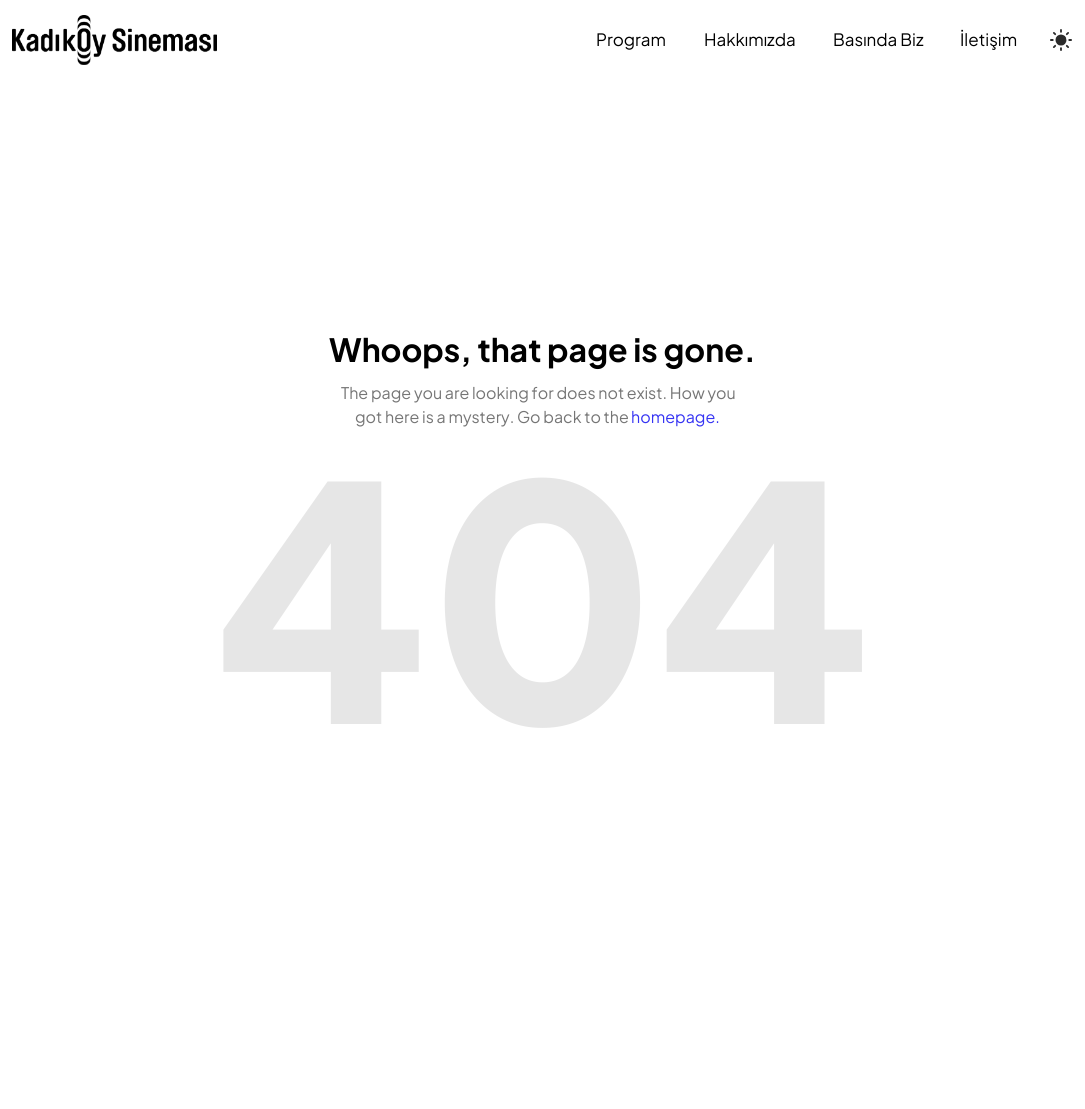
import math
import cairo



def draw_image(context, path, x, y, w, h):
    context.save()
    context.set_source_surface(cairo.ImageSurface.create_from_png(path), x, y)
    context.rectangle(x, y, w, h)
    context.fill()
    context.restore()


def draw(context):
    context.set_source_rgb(1, 1, 1)
    context.paint()
    draw_image(context, "images/1.png", 12, 15, 205, 50)
    draw_image(context, "images/2.png", 1050, 29, 22, 22)
    context.select_font_face("Plus Jakarta Sans")
    context.set_font_size(17)
    context.set_source_rgb(0, 0, 0)
    context.move_to(596, 46)
    context.show_text("Program")
    context.move_to(704, 46)
    context.show_text("Hakkımızda")
    context.move_to(833, 46)
    context.show_text("Basında Biz")
    context.move_to(960, 46)
    context.show_text("İletişim")
    context.select_font_face("Plus Jakarta Sans", cairo.FontSlant.NORMAL, cairo.FontWeight.BOLD)
    context.set_font_size(32)
    context.move_to(329, 362)
    context.show_text("Whoops, that page is gone.")
    context.select_font_face("Plus Jakarta Sans")
    context.set_font_size(16)
    context.set_source_rgb(117 / 255, 117 / 255, 117 / 255)
    context.move_to(341, 399)
    context.show_text("The page you are looking for does not exist. How you")
    context.move_to(355, 423)
    context.show_text("got here is a mystery. Go back to the")
    context.set_source_rgb(53 / 255, 51 / 255, 243 / 255)
    context.move_to(631, 423)
    context.show_text("homepage.")
    context.select_font_face("Plus Jakarta Sans ExtraBold")
    context.set_font_size(325.5)
    context.set_source_rgb(230 / 255, 230 / 255, 230 / 255)
    context.move_to(213, 724)
    context.show_text("404")


surface = cairo.ImageSurface(cairo.Format.RGB24, 1085, 1109)
context = cairo.Context(surface)
options = cairo.FontOptions()
options.set_hint_metrics(cairo.HintMetrics.OFF)
options.set_hint_style(cairo.HintStyle.NONE)
context.set_font_options(options)
context.set_miter_limit(4)
draw(context)
surface.write_to_png("out.png")
